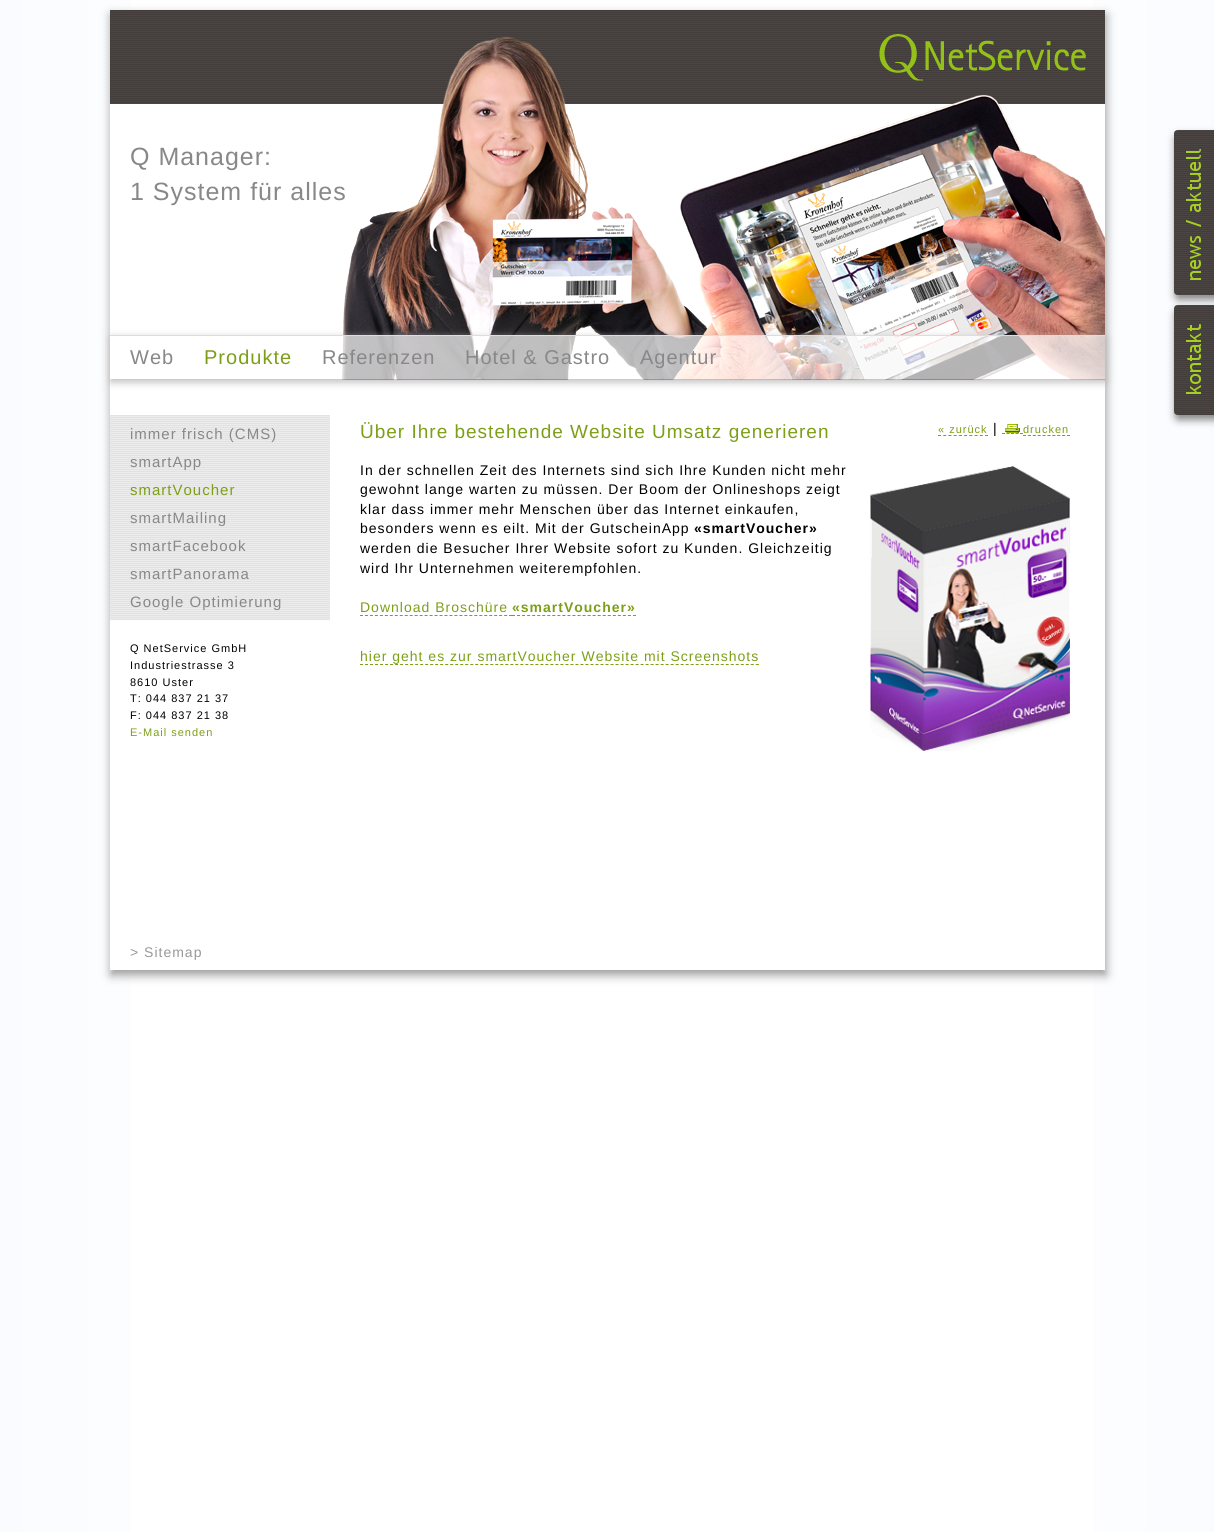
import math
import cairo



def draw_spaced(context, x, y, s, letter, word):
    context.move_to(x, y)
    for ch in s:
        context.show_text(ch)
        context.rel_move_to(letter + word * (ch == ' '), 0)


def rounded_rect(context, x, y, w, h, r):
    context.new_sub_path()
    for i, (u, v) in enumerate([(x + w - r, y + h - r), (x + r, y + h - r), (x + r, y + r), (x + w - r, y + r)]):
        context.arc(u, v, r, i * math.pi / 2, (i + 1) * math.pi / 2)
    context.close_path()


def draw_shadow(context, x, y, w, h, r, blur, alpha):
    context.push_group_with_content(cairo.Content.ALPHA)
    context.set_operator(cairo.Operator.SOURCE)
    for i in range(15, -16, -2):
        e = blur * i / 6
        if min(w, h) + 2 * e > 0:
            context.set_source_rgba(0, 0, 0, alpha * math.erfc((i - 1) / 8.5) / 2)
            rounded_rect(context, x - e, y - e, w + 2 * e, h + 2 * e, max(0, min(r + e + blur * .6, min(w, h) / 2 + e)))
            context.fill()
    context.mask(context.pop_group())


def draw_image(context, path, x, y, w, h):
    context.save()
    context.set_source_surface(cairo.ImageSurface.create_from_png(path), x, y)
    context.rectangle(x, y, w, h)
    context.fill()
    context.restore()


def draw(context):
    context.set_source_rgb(1, 1, 1)
    context.paint()
    draw_image(context, "images/1.png", 0, 0, 1214, 1532)
    context.set_source_rgb(153 / 255, 153 / 255, 153 / 255)
    draw_shadow(context, 111, 15, 995, 960, 0, 5, 1)
    context.set_source_rgb(1, 1, 1)
    context.rectangle(110, 104, 995, 866)
    context.fill()
    draw_image(context, "images/2.png", 110, 10, 995, 94)
    draw_image(context, "images/3.png", 342, 36, 763, 344)
    draw_image(context, "images/4.png", 879, 34, 207, 47)
    context.save()
    context.set_fill_rule(cairo.FillRule.EVEN_ODD)
    context.new_path()
    context.move_to(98, 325)
    context.line_to(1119, 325)
    context.line_to(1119, 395)
    context.line_to(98, 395)
    context.close_path()
    context.move_to(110, 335)
    context.line_to(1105, 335)
    context.line_to(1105, 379)
    context.line_to(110, 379)
    context.close_path()
    context.clip()
    context.set_source_rgb(187 / 255, 187 / 255, 187 / 255)
    draw_shadow(context, 111, 338, 995, 44, 0, 4, 1)
    context.restore()
    context.set_source_rgba(1, 1, 1, 0.7)
    context.rectangle(342, 336, 763, 43)
    context.fill()
    context.set_source_rgb(221 / 255, 221 / 255, 221 / 255)
    context.rectangle(110, 335, 995, 1)
    context.fill()
    context.set_source_rgb(224 / 255, 229 / 255, 224 / 255)
    context.rectangle(110, 415, 220, 205)
    context.fill()
    draw_image(context, "images/5.png", 110, 416, 220, 203)
    context.new_path()
    context.move_to(938, 435.5)
    context.line_to(988, 435.5)
    context.set_source_rgb(125 / 255, 159 / 255, 23 / 255)
    context.set_line_width(1)
    context.set_dash([3, 2.22])
    context.stroke()
    draw_image(context, "images/6.png", 1005, 424, 15, 9)
    context.new_path()
    context.move_to(1002, 433.5)
    context.line_to(1023, 433.5)
    context.set_dash([3, 1.5])
    context.stroke()
    context.new_path()
    context.move_to(1023, 435.5)
    context.line_to(1070, 435.5)
    context.set_dash([3, 1.89])
    context.stroke()
    context.new_path()
    context.move_to(360, 615.5)
    context.line_to(512, 615.5)
    context.set_dash([3, 1.97])
    context.stroke()
    context.new_path()
    context.move_to(512, 615.5)
    context.line_to(636, 615.5)
    context.set_dash([3, 2.04])
    context.stroke()
    draw_image(context, "images/7.png", 870, 466, 200, 285)
    context.new_path()
    context.move_to(360, 664.5)
    context.line_to(759, 664.5)
    context.set_dash([3, 2.01])
    context.stroke()
    context.set_source_rgb(136 / 255, 136 / 255, 136 / 255)
    draw_shadow(context, 1175, 135, 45, 165, 4, 4, 1)
    draw_image(context, "images/8.png", 1174, 130, 40, 165)
    draw_image(context, "images/9.png", 1186, 149, 15, 131)
    draw_shadow(context, 1175, 310, 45, 110, 4, 4, 1)
    draw_image(context, "images/10.png", 1174, 305, 40, 110)
    draw_image(context, "images/11.png", 1186, 324, 15, 70)
    context.select_font_face("Liberation Sans")
    context.set_font_size(25)
    context.set_source_rgb(136 / 255, 136 / 255, 136 / 255)
    draw_spaced(context, 130, 165, "Q Manager:", 1, 0)
    draw_spaced(context, 130, 200, "1 System für alles", 1, 0)
    context.set_font_size(20)
    draw_spaced(context, 130, 364, "Web", 1, 0)
    context.set_source_rgb(125 / 255, 159 / 255, 23 / 255)
    draw_spaced(context, 204, 364, "Produkte", 1, 0)
    context.set_source_rgb(136 / 255, 136 / 255, 136 / 255)
    draw_spaced(context, 322, 364, "Referenzen", 1, 0)
    draw_spaced(context, 465, 364, "Hotel & Gastro", 1, 0)
    draw_spaced(context, 640, 364, "Agentur", 1, 0)
    context.set_font_size(15)
    draw_spaced(context, 130, 439, "immer frisch (CMS)", 1, 0)
    draw_spaced(context, 130, 467, "smartApp", 1, 0)
    context.set_source_rgb(125 / 255, 159 / 255, 23 / 255)
    draw_spaced(context, 130, 495, "smartVoucher", 1, 0)
    context.set_source_rgb(136 / 255, 136 / 255, 136 / 255)
    draw_spaced(context, 130, 523, "smartMailing", 1, 0)
    draw_spaced(context, 130, 551, "smartFacebook", 1, 0)
    draw_spaced(context, 130, 579, "smartPanorama", 1, 0)
    draw_spaced(context, 130, 607, "Google Optimierung", 1, 0)
    context.set_font_size(11)
    context.set_source_rgb(0, 0, 0)
    draw_spaced(context, 130, 652, "Q NetService GmbH", 1, 0)
    draw_spaced(context, 130, 669, "Industriestrasse 3", 1, 0)
    draw_spaced(context, 130, 686, "8610 Uster", 1, 0)
    draw_spaced(context, 130, 702, "T: 044 837 21 37", 1, 0)
    draw_spaced(context, 130, 719, "F: 044 837 21 38", 1, 0)
    context.set_source_rgb(125 / 255, 159 / 255, 23 / 255)
    draw_spaced(context, 130, 736, "E-Mail senden", 1, 0)
    context.set_font_size(19)
    draw_spaced(context, 360, 438, "Über Ihre bestehende Website Umsatz generieren", 1, 0)
    context.set_font_size(11)
    draw_spaced(context, 938, 433, "« zurück", 1, 0)
    context.set_font_size(14)
    context.set_source_rgb(0, 0, 0)
    draw_spaced(context, 993, 433, "|", 1, 0)
    context.set_font_size(11)
    context.set_source_rgb(125 / 255, 159 / 255, 23 / 255)
    draw_spaced(context, 1023, 433, "drucken", 1, 0)
    context.set_font_size(14)
    context.set_source_rgb(0, 0, 0)
    draw_spaced(context, 360, 475, "In der schnellen Zeit des Internets sind sich Ihre Kunden nicht mehr", 1, 0)
    draw_spaced(context, 360, 494, "gewohnt lange warten zu müssen. Der Boom der Onlineshops zeigt", 1, 0)
    draw_spaced(context, 360, 514, "klar dass immer mehr Menschen über das Internet einkaufen,", 1, 0)
    draw_spaced(context, 360, 533, "besonders wenn es eilt. Mit der GutscheinApp", 1, 0)
    context.select_font_face("Liberation Sans", cairo.FontSlant.NORMAL, cairo.FontWeight.BOLD)
    draw_spaced(context, 694, 533, "«smartVoucher»", 1, 0)
    context.select_font_face("Liberation Sans")
    draw_spaced(context, 360, 553, "werden die Besucher Ihrer Website sofort zu Kunden. Gleichzeitig", 1, 0)
    draw_spaced(context, 360, 573, "wird Ihr Unternehmen weiterempfohlen.", 1, 0)
    context.set_source_rgb(125 / 255, 159 / 255, 23 / 255)
    draw_spaced(context, 360, 612, "Download Broschüre", 1, 0)
    context.select_font_face("Liberation Sans", cairo.FontSlant.NORMAL, cairo.FontWeight.BOLD)
    draw_spaced(context, 512, 612, "«smartVoucher»", 1, 0)
    context.select_font_face("Liberation Sans")
    draw_spaced(context, 360, 661, "hier geht es zur smartVoucher Website mit Screenshots", 1, 0)
    context.set_source_rgb(153 / 255, 153 / 255, 153 / 255)
    draw_spaced(context, 130, 957, "> Sitemap", 1, 0)


surface = cairo.ImageSurface(cairo.Format.RGB24, 1214, 1532)
context = cairo.Context(surface)
options = cairo.FontOptions()
options.set_hint_metrics(cairo.HintMetrics.OFF)
options.set_hint_style(cairo.HintStyle.NONE)
context.set_font_options(options)
context.set_miter_limit(4)
draw(context)
surface.write_to_png("out.png")
